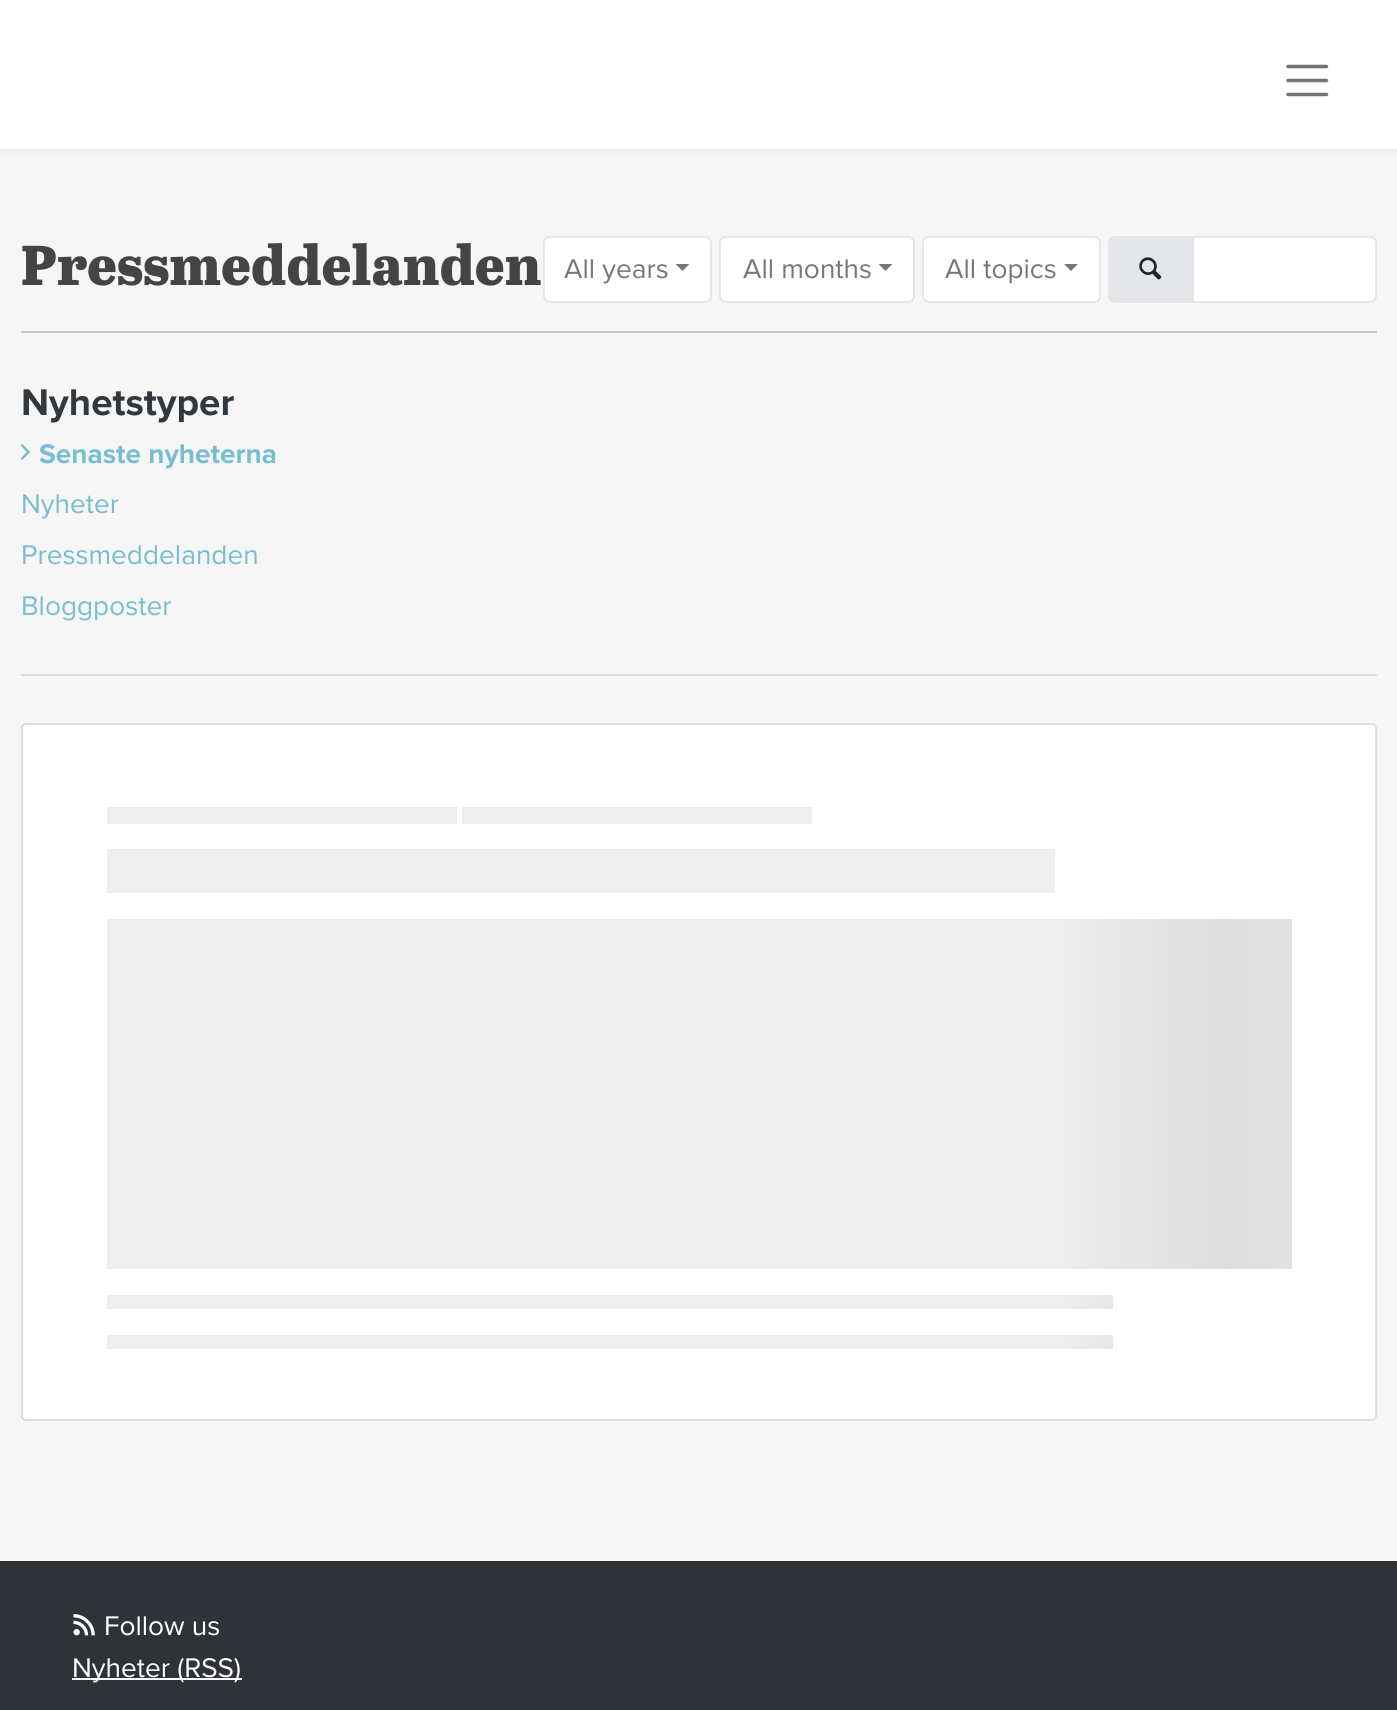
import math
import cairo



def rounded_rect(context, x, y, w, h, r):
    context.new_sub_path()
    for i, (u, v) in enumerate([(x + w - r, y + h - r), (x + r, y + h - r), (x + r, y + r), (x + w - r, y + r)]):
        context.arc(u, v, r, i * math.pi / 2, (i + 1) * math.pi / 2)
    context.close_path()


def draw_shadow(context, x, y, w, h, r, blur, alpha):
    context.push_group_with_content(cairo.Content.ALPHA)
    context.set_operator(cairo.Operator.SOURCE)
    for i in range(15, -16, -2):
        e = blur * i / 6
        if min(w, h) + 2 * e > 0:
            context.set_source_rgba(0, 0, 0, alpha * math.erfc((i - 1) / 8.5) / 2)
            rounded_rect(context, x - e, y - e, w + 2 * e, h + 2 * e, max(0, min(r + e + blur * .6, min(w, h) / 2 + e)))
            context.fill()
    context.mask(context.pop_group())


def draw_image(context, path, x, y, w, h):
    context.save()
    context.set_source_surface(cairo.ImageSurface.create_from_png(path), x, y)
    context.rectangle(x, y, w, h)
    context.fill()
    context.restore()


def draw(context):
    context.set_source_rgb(47 / 255, 50 / 255, 55 / 255)
    context.paint()
    context.set_source_rgb(246 / 255, 246 / 255, 246 / 255)
    context.rectangle(0, 149, 1397, 1412)
    context.fill()
    context.set_source_rgb(0, 0, 0)
    draw_shadow(context, 0, 0, 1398, 149, 0, 3.5, 0.1)
    context.set_source_rgb(1, 1, 1)
    context.rectangle(0, 0, 1397, 149)
    context.fill()
    context.new_path()
    context.move_to(1288, 66.5)
    context.line_to(1326.5, 66.5)
    context.move_to(1288, 80.5)
    context.line_to(1326.5, 80.5)
    context.move_to(1288, 94.5)
    context.line_to(1326.5, 94.5)
    context.set_source_rgb(115 / 255, 115 / 255, 115 / 255)
    context.set_line_width(3.5)
    context.set_line_cap(cairo.LineCap.ROUND)
    context.stroke()
    context.set_source_rgb(1, 1, 1)
    rounded_rect(context, 544, 237, 167, 65, 6)
    context.fill_preserve()
    context.set_source_rgb(230 / 255, 230 / 255, 230 / 255)
    context.set_line_width(2)
    context.set_line_cap(cairo.LineCap.BUTT)
    context.stroke()
    context.set_source_rgb(119 / 255, 119 / 255, 119 / 255)
    context.new_path()
    context.move_to(675.5, 264)
    context.line_to(689.5, 264)
    context.line_to(682.5, 271)
    context.close_path()
    context.fill()
    context.set_source_rgb(1, 1, 1)
    rounded_rect(context, 720, 237, 194, 65, 6)
    context.fill_preserve()
    context.set_source_rgb(230 / 255, 230 / 255, 230 / 255)
    context.stroke()
    context.set_source_rgb(119 / 255, 119 / 255, 119 / 255)
    context.new_path()
    context.move_to(878.5, 264)
    context.line_to(892.5, 264)
    context.line_to(885.5, 271)
    context.close_path()
    context.fill()
    context.set_source_rgb(1, 1, 1)
    rounded_rect(context, 923, 237, 177, 65, 6)
    context.fill_preserve()
    context.set_source_rgb(230 / 255, 230 / 255, 230 / 255)
    context.stroke()
    context.set_source_rgb(119 / 255, 119 / 255, 119 / 255)
    context.new_path()
    context.move_to(1064, 264)
    context.line_to(1078, 264)
    context.line_to(1071, 271)
    context.close_path()
    context.fill()
    context.set_source_rgb(227 / 255, 229 / 255, 232 / 255)
    context.new_path()
    context.move_to(1115, 237)
    context.line_to(1193, 237)
    context.line_to(1193, 302)
    context.line_to(1115, 302)
    context.curve_to(1111.5, 302, 1109, 299.5, 1109, 296)
    context.line_to(1109, 243)
    context.curve_to(1109, 239.5, 1111.5, 237, 1115, 237)
    context.close_path()
    context.fill_preserve()
    context.set_source_rgb(230 / 255, 230 / 255, 230 / 255)
    context.stroke()
    draw_image(context, "images/1.png", 1139, 257, 23, 23)
    context.set_source_rgb(1, 1, 1)
    context.new_path()
    context.move_to(1193, 237)
    context.line_to(1370, 237)
    context.curve_to(1373.5, 237, 1376, 239.5, 1376, 243)
    context.line_to(1376, 296)
    context.curve_to(1376, 299.5, 1373.5, 302, 1370, 302)
    context.line_to(1193, 302)
    context.close_path()
    context.fill_preserve()
    context.set_source_rgb(230 / 255, 230 / 255, 230 / 255)
    context.stroke()
    context.set_source_rgb(197 / 255, 199 / 255, 200 / 255)
    context.rectangle(21, 331, 1356, 2)
    context.fill()
    context.set_source_rgb(221 / 255, 221 / 255, 221 / 255)
    context.rectangle(21, 674, 1356, 2)
    context.fill()
    draw_image(context, "images/2.png", 21, 444, 9, 16)
    context.set_source_rgb(1, 1, 1)
    rounded_rect(context, 22, 724, 1354, 696, 4)
    context.fill_preserve()
    context.set_source_rgb(222 / 255, 222 / 255, 222 / 255)
    context.stroke()
    gradient = cairo.LinearGradient(-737, 898, 926, 898)
    gradient.add_color_stop_rgba(0.08, 238 / 255, 238 / 255, 238 / 255, 1)
    gradient.add_color_stop_rgba(0.18, 221 / 255, 221 / 255, 221 / 255, 1)
    gradient.add_color_stop_rgba(0.33, 238 / 255, 238 / 255, 238 / 255, 1)
    context.set_source(gradient)
    context.rectangle(107, 807, 350, 17)
    context.fill()
    gradient = cairo.LinearGradient(-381, 898, 1281, 898)
    gradient.add_color_stop_rgba(0.08, 238 / 255, 238 / 255, 238 / 255, 1)
    gradient.add_color_stop_rgba(0.18, 221 / 255, 221 / 255, 221 / 255, 1)
    gradient.add_color_stop_rgba(0.33, 238 / 255, 238 / 255, 238 / 255, 1)
    context.set_source(gradient)
    context.rectangle(462, 807, 350, 17)
    context.fill()
    gradient = cairo.LinearGradient(-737, 940, 926, 940)
    gradient.add_color_stop_rgba(0.08, 238 / 255, 238 / 255, 238 / 255, 1)
    gradient.add_color_stop_rgba(0.18, 221 / 255, 221 / 255, 221 / 255, 1)
    gradient.add_color_stop_rgba(0.33, 238 / 255, 238 / 255, 238 / 255, 1)
    context.set_source(gradient)
    context.rectangle(107, 849, 819, 44)
    context.fill()
    gradient = cairo.LinearGradient(926, 940, 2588, 940)
    gradient.add_color_stop_rgba(0.08, 238 / 255, 238 / 255, 238 / 255, 1)
    gradient.add_color_stop_rgba(0.18, 221 / 255, 221 / 255, 221 / 255, 1)
    gradient.add_color_stop_rgba(0.33, 238 / 255, 238 / 255, 238 / 255, 1)
    context.set_source(gradient)
    context.rectangle(926, 849, 129, 44)
    context.fill()
    gradient = cairo.LinearGradient(-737, 1010, 926, 1010)
    gradient.add_color_stop_rgba(0.08, 238 / 255, 238 / 255, 238 / 255, 1)
    gradient.add_color_stop_rgba(0.18, 221 / 255, 221 / 255, 221 / 255, 1)
    gradient.add_color_stop_rgba(0.33, 238 / 255, 238 / 255, 238 / 255, 1)
    context.set_source(gradient)
    context.rectangle(107, 919, 819, 350)
    context.fill()
    gradient = cairo.LinearGradient(926, 1010, 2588, 1010)
    gradient.add_color_stop_rgba(0.08, 238 / 255, 238 / 255, 238 / 255, 1)
    gradient.add_color_stop_rgba(0.18, 221 / 255, 221 / 255, 221 / 255, 1)
    gradient.add_color_stop_rgba(0.33, 238 / 255, 238 / 255, 238 / 255, 1)
    context.set_source(gradient)
    context.rectangle(926, 919, 366, 350)
    context.fill()
    gradient = cairo.LinearGradient(-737, 1386, 926, 1386)
    gradient.add_color_stop_rgba(0.08, 238 / 255, 238 / 255, 238 / 255, 1)
    gradient.add_color_stop_rgba(0.18, 221 / 255, 221 / 255, 221 / 255, 1)
    gradient.add_color_stop_rgba(0.33, 238 / 255, 238 / 255, 238 / 255, 1)
    context.set_source(gradient)
    context.rectangle(107, 1295, 819, 14)
    context.fill()
    gradient = cairo.LinearGradient(926, 1386, 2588, 1386)
    gradient.add_color_stop_rgba(0.08, 238 / 255, 238 / 255, 238 / 255, 1)
    gradient.add_color_stop_rgba(0.18, 221 / 255, 221 / 255, 221 / 255, 1)
    gradient.add_color_stop_rgba(0.33, 238 / 255, 238 / 255, 238 / 255, 1)
    context.set_source(gradient)
    context.rectangle(926, 1295, 187, 14)
    context.fill()
    gradient = cairo.LinearGradient(-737, 1426, 926, 1426)
    gradient.add_color_stop_rgba(0.08, 238 / 255, 238 / 255, 238 / 255, 1)
    gradient.add_color_stop_rgba(0.18, 221 / 255, 221 / 255, 221 / 255, 1)
    gradient.add_color_stop_rgba(0.33, 238 / 255, 238 / 255, 238 / 255, 1)
    context.set_source(gradient)
    context.rectangle(107, 1335, 819, 14)
    context.fill()
    gradient = cairo.LinearGradient(926, 1426, 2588, 1426)
    gradient.add_color_stop_rgba(0.08, 238 / 255, 238 / 255, 238 / 255, 1)
    gradient.add_color_stop_rgba(0.18, 221 / 255, 221 / 255, 221 / 255, 1)
    gradient.add_color_stop_rgba(0.33, 238 / 255, 238 / 255, 238 / 255, 1)
    context.set_source(gradient)
    context.rectangle(926, 1335, 187, 14)
    context.fill()
    draw_image(context, "images/3.png", 73, 1614, 22, 22)
    context.set_source_rgb(1, 1, 1)
    context.rectangle(72, 1678, 170, 2)
    context.fill()
    context.select_font_face("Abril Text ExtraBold")
    context.set_font_size(56)
    context.set_source_rgb(68 / 255, 68 / 255, 68 / 255)
    context.move_to(21, 285)
    context.show_text("Pressmeddelanden")
    context.select_font_face("Proxima Nova")
    context.set_font_size(28)
    context.set_source_rgb(119 / 255, 119 / 255, 119 / 255)
    context.move_to(564, 278)
    context.show_text("All years")
    context.move_to(743, 278)
    context.show_text("All months")
    context.move_to(945, 278)
    context.show_text("All topics")
    context.select_font_face("Proxima Nova", cairo.FontSlant.NORMAL, cairo.FontWeight.BOLD)
    context.set_font_size(38.5)
    context.set_source_rgb(48 / 255, 57 / 255, 63 / 255)
    context.move_to(21, 415)
    context.show_text("Nyhetstyper")
    context.set_font_size(28)
    context.set_source_rgb(120 / 255, 189 / 255, 210 / 255)
    context.move_to(39, 463)
    context.show_text("Senaste nyheterna")
    context.select_font_face("Proxima Nova")
    context.move_to(21, 513)
    context.show_text("Nyheter")
    context.move_to(21, 564)
    context.show_text("Pressmeddelanden")
    context.move_to(21, 615)
    context.show_text("Bloggposter")
    context.set_source_rgb(1, 1, 1)
    context.move_to(104, 1635)
    context.show_text("Follow us")
    context.move_to(72, 1677)
    context.show_text("Nyheter (RSS)")


surface = cairo.ImageSurface(cairo.Format.RGB24, 1397, 1710)
context = cairo.Context(surface)
options = cairo.FontOptions()
options.set_hint_metrics(cairo.HintMetrics.OFF)
options.set_hint_style(cairo.HintStyle.NONE)
context.set_font_options(options)
context.set_miter_limit(4)
draw(context)
surface.write_to_png("out.png")
